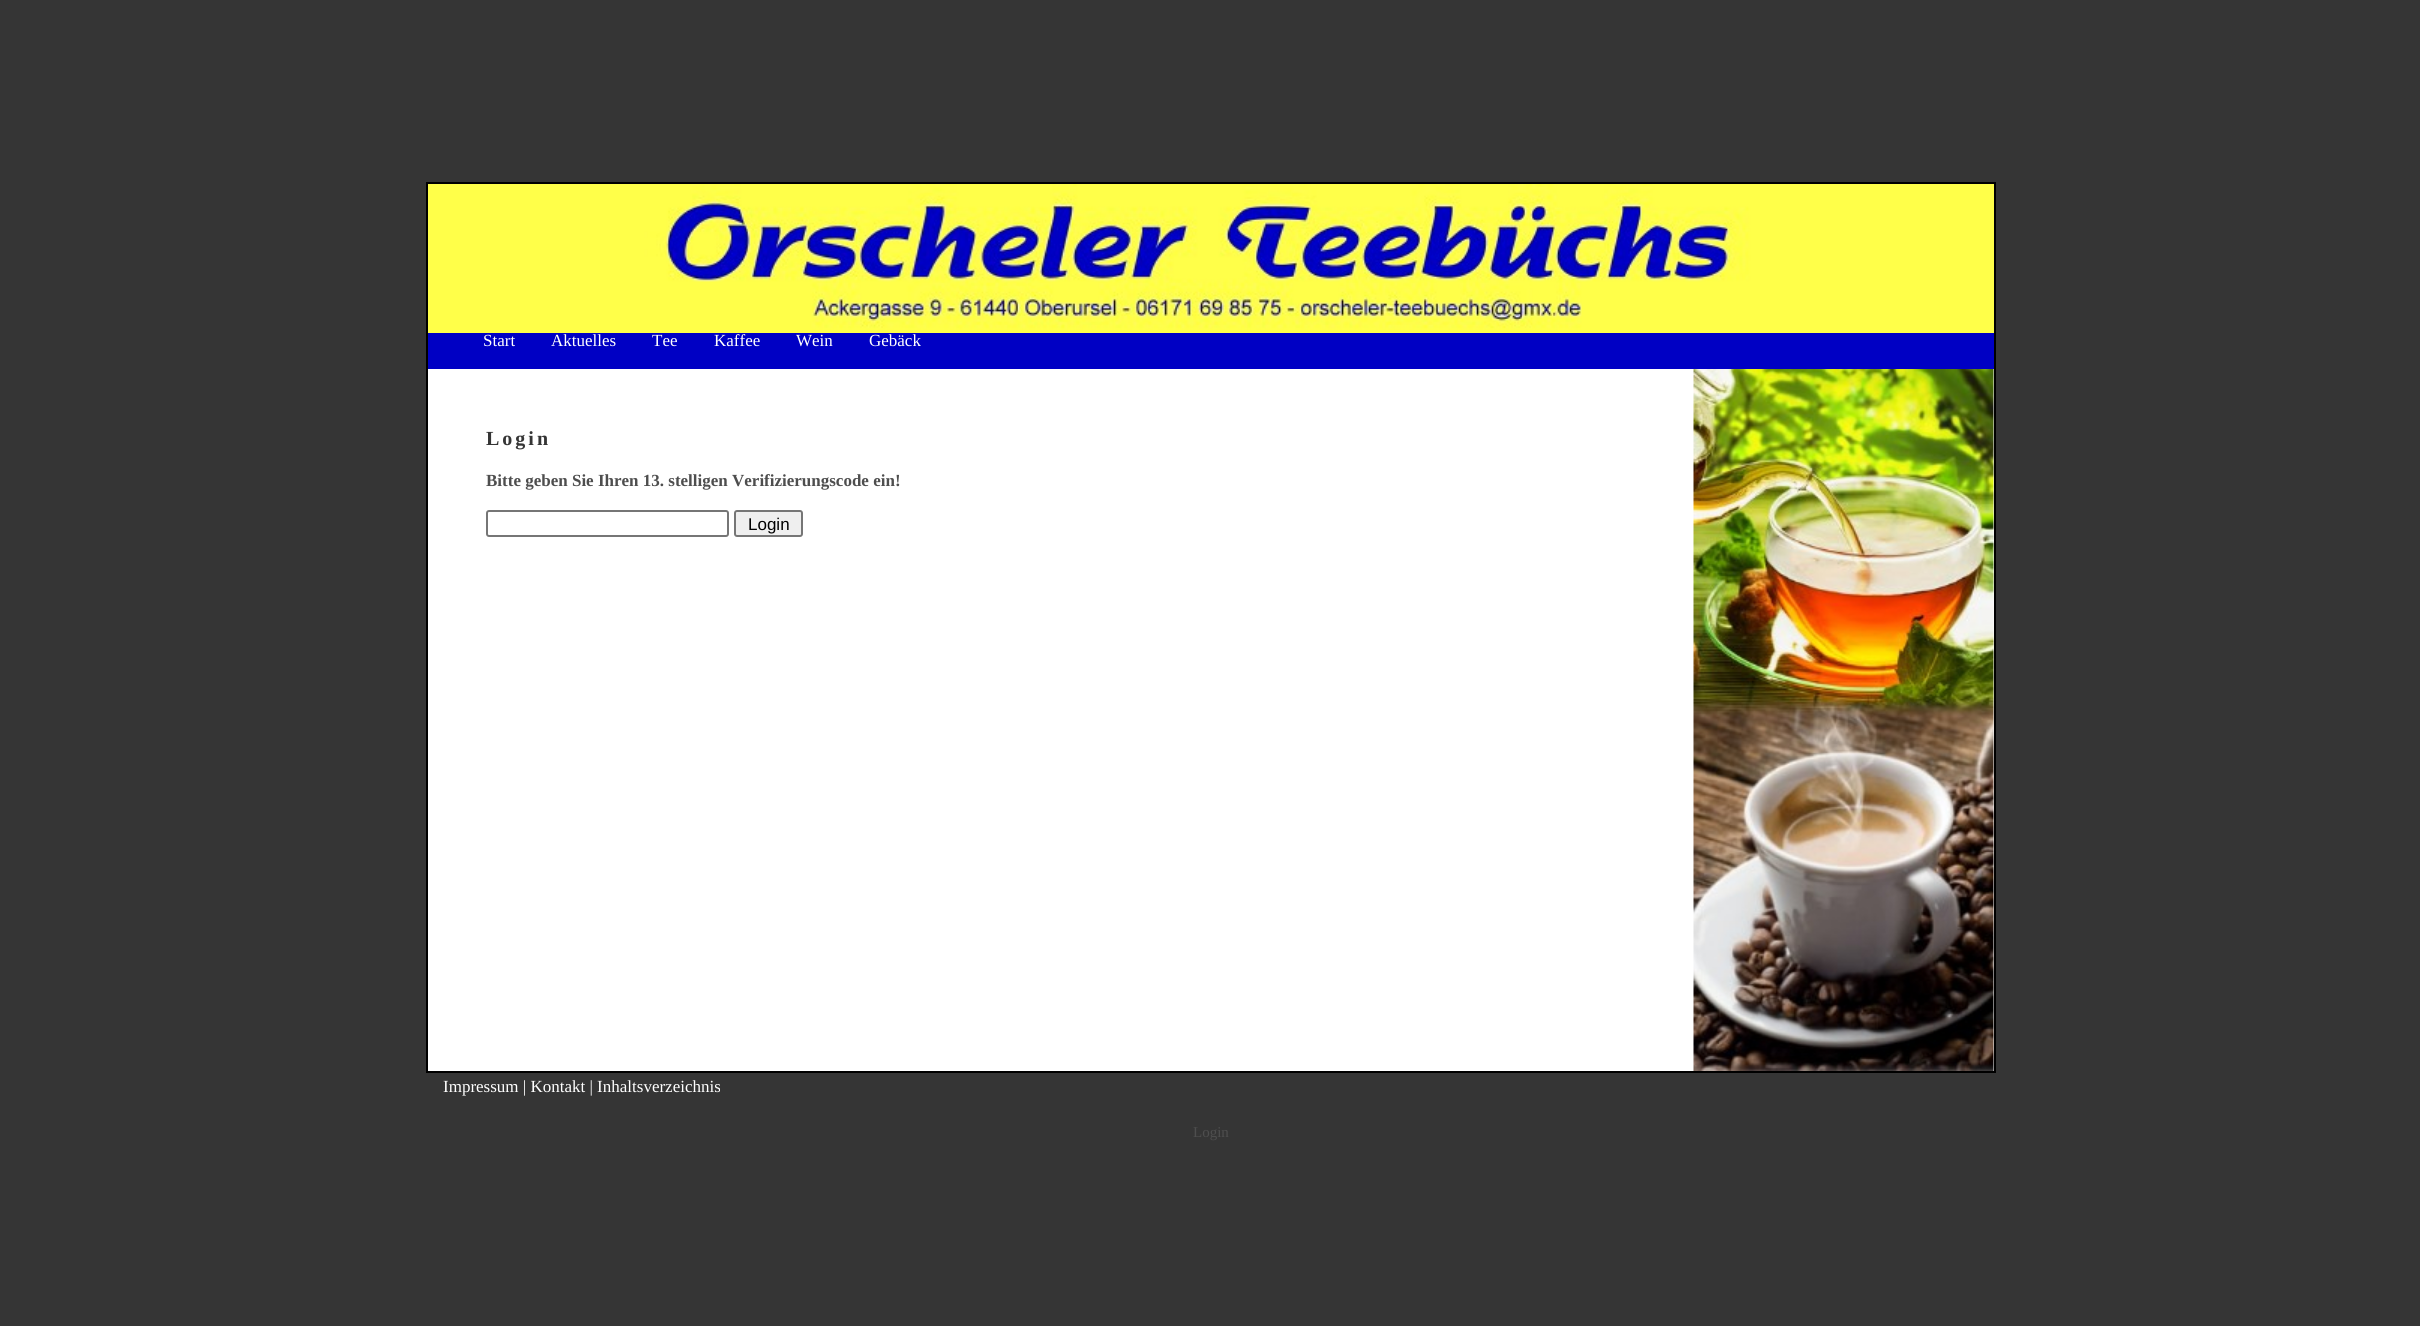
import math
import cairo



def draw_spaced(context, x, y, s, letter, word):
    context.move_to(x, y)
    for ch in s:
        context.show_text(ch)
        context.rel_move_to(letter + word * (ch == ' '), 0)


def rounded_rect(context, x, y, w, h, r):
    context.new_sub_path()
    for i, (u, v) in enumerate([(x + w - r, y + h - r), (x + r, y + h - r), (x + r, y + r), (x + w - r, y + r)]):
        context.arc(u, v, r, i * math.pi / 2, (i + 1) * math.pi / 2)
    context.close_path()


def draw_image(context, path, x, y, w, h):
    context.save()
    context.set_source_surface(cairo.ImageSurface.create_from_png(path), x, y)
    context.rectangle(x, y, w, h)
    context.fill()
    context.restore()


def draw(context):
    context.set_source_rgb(53 / 255, 53 / 255, 53 / 255)
    context.paint()
    context.set_source_rgb(1, 1, 1)
    context.rectangle(428, 369, 1566, 702)
    context.fill()
    context.set_source_rgb(0, 0, 0)
    context.rectangle(426, 182, 1569, 2)
    context.fill()
    context.rectangle(1994, 182, 2, 891)
    context.fill()
    context.rectangle(426, 1071, 1569, 2)
    context.fill()
    context.rectangle(426, 182, 2, 891)
    context.fill()
    draw_image(context, "images/1.png", 428, 184, 1566, 149)
    context.set_source_rgb(0, 0, 196 / 255)
    context.rectangle(428, 333, 1566, 36)
    context.fill()
    rounded_rect(context, 487, 511, 241, 25, 2)
    context.set_source_rgb(118 / 255, 118 / 255, 118 / 255)
    context.stroke()
    context.set_source_rgb(239 / 255, 239 / 255, 239 / 255)
    rounded_rect(context, 735, 511, 67, 25, 2)
    context.fill_preserve()
    context.set_source_rgb(118 / 255, 118 / 255, 118 / 255)
    context.stroke()
    draw_image(context, "images/2.png", 1693, 369, 301, 702)
    context.select_font_face("Liberation Serif")
    context.set_font_size(17)
    context.set_source_rgb(1, 1, 1)
    context.move_to(483, 346)
    context.show_text("Start")
    context.move_to(551, 346)
    context.show_text("Aktuelles")
    context.move_to(652, 346)
    context.show_text("Tee")
    context.move_to(714, 346)
    context.show_text("Kaffee")
    context.move_to(796, 346)
    context.show_text("Wein")
    context.move_to(869, 346)
    context.show_text("Gebäck")
    context.select_font_face("Liberation Serif", cairo.FontSlant.NORMAL, cairo.FontWeight.BOLD)
    context.set_font_size(20)
    context.set_source_rgb(53 / 255, 53 / 255, 53 / 255)
    draw_spaced(context, 486, 445, "Login", 3, 0)
    context.set_font_size(17)
    context.set_source_rgb(78 / 255, 78 / 255, 78 / 255)
    context.move_to(486, 486)
    context.show_text("Bitte geben Sie Ihren 13. stelligen Verifizierungscode ein!")
    context.select_font_face("Liberation Sans")
    context.set_source_rgb(0, 0, 0)
    context.move_to(748, 530)
    context.show_text("Login")
    context.select_font_face("Liberation Serif")
    context.set_source_rgb(1, 1, 1)
    context.move_to(443, 1092)
    context.show_text("Impressum | Kontakt | Inhaltsverzeichnis")
    context.set_font_size(15)
    context.set_source_rgb(78 / 255, 78 / 255, 78 / 255)
    context.move_to(1193, 1137)
    context.show_text("Login")


surface = cairo.ImageSurface(cairo.Format.RGB24, 2420, 1326)
context = cairo.Context(surface)
options = cairo.FontOptions()
options.set_hint_metrics(cairo.HintMetrics.OFF)
options.set_hint_style(cairo.HintStyle.NONE)
context.set_font_options(options)
context.set_miter_limit(4)
draw(context)
surface.write_to_png("out.png")
